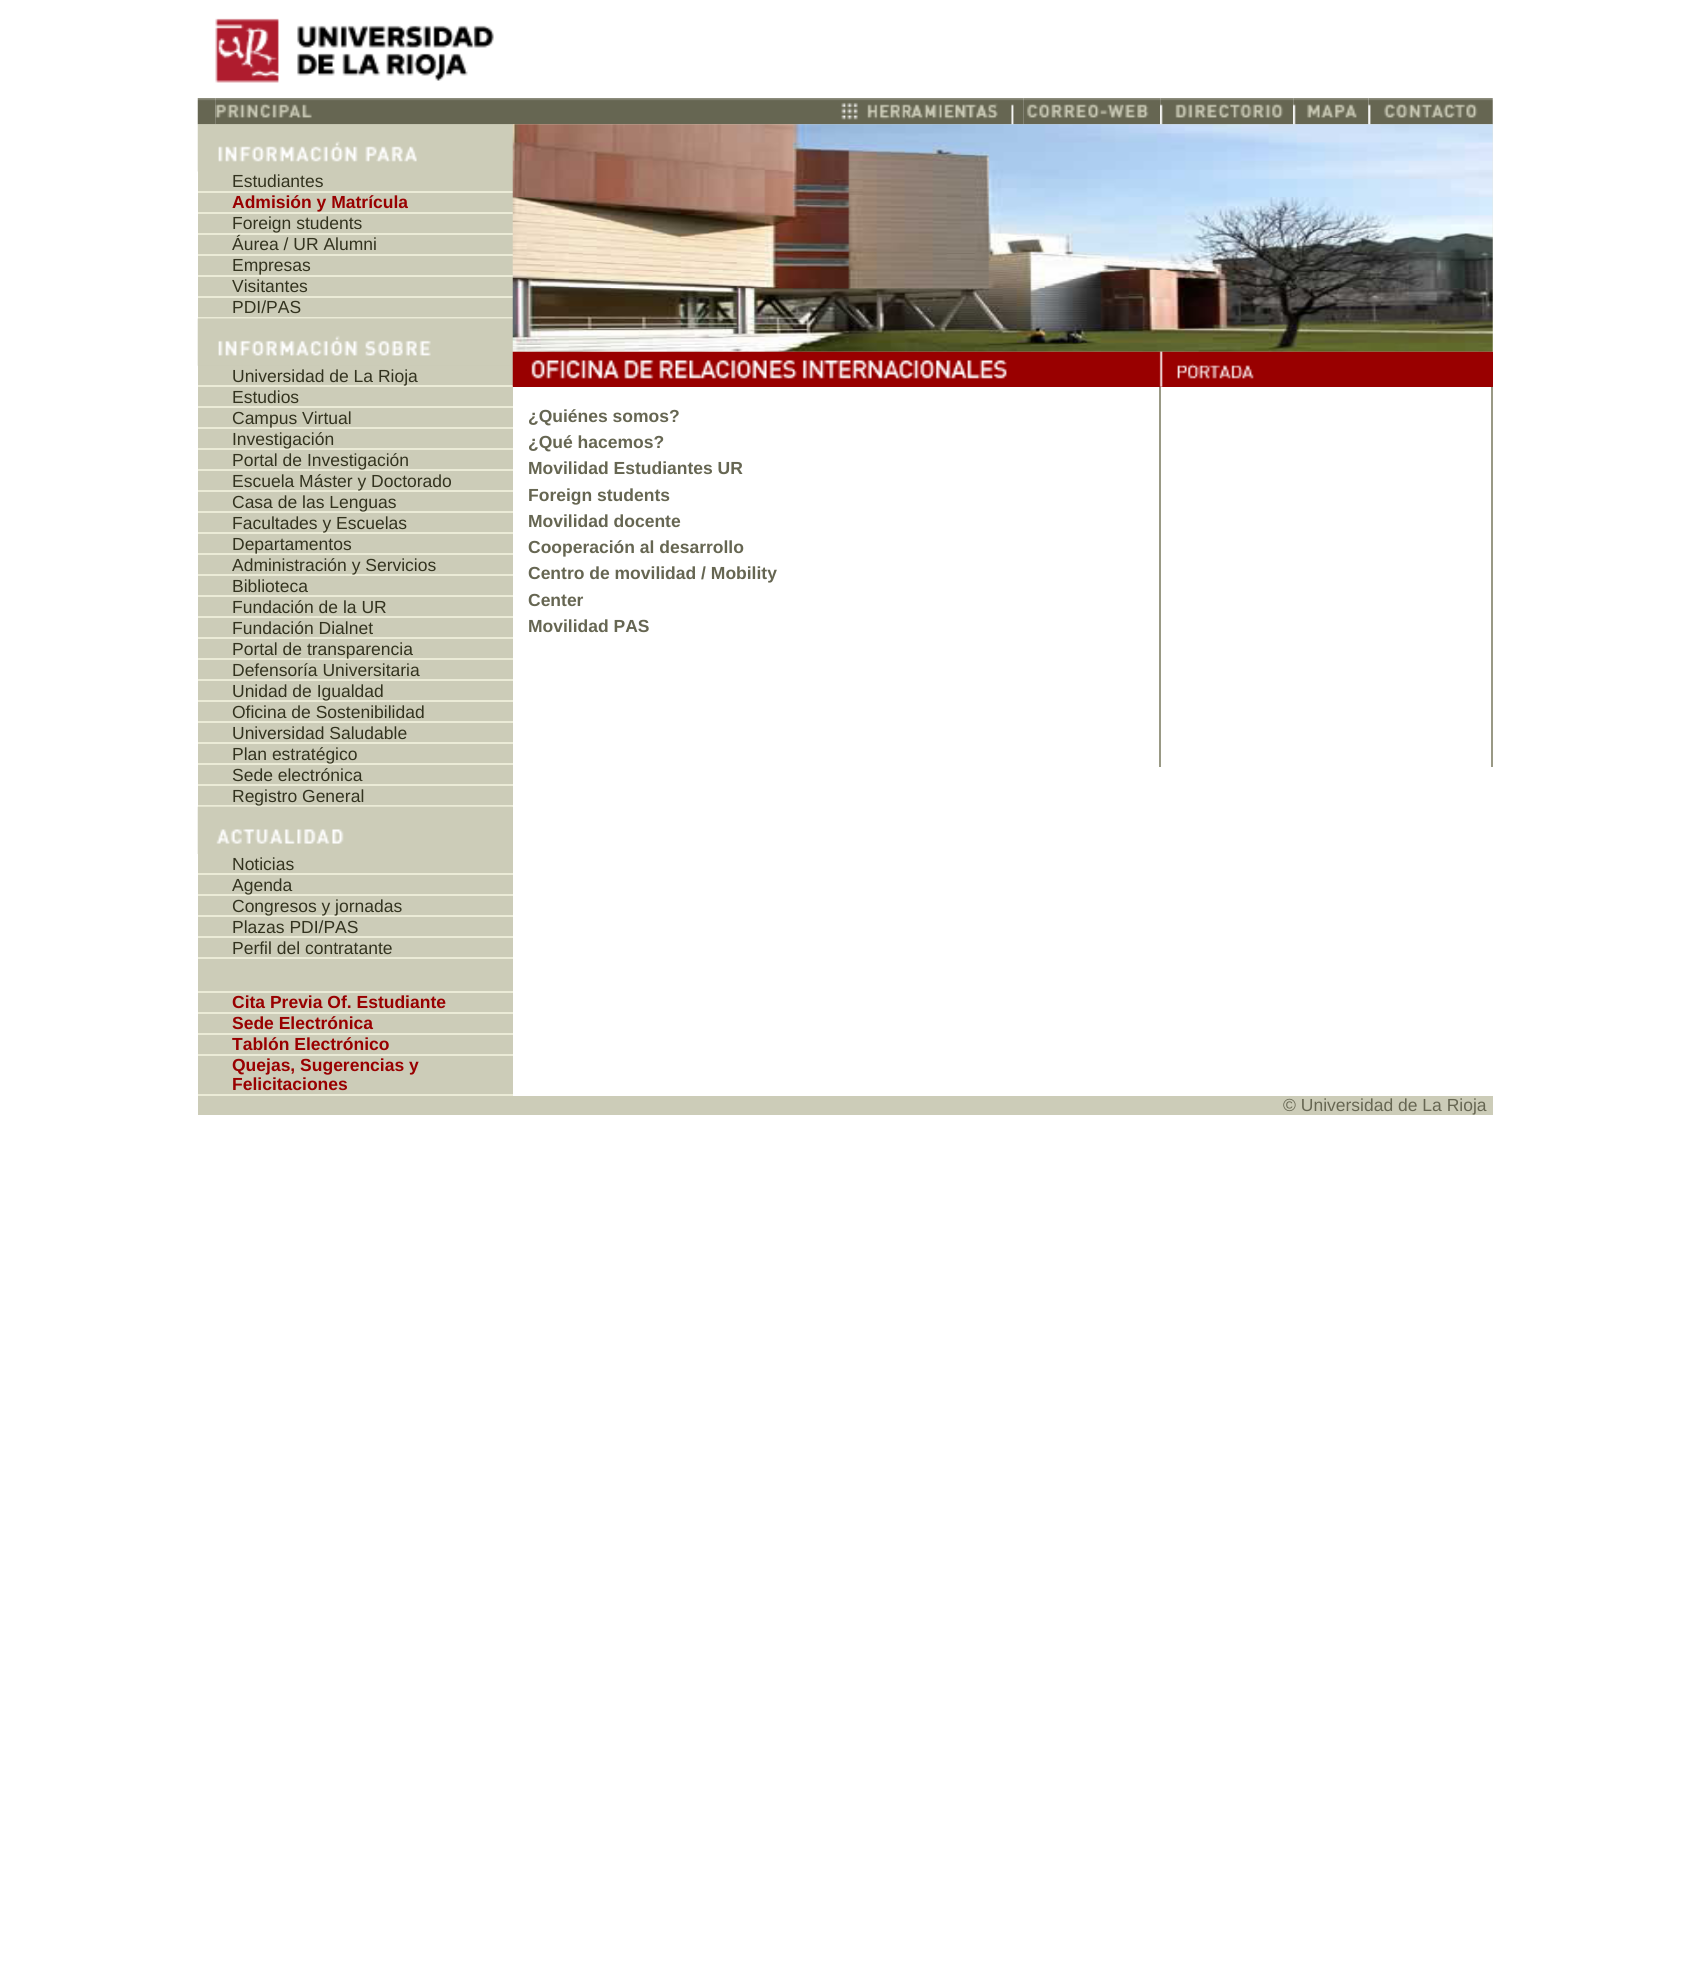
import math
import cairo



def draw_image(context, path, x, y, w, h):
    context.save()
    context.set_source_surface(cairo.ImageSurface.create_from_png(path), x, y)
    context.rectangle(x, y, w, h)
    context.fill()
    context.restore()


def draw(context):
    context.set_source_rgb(1, 1, 1)
    context.paint()
    draw_image(context, "images/1.png", 215, 18, 279, 65)
    context.set_source_rgb(204 / 255, 204 / 255, 184 / 255)
    context.rectangle(198, 124, 315, 970)
    context.fill()
    draw_image(context, "images/2.png", 197, 98, 19, 27)
    draw_image(context, "images/3.png", 215, 98, 100, 27)
    context.set_source_rgb(235 / 255, 235 / 255, 215 / 255)
    context.rectangle(513, 124, 980, 228)
    context.fill()
    draw_image(context, "images/4.png", 315, 98, 709, 27)
    draw_image(context, "images/5.png", 1023, 98, 138, 27)
    draw_image(context, "images/6.png", 1160, 98, 134, 27)
    draw_image(context, "images/7.png", 1293, 98, 76, 27)
    draw_image(context, "images/8.png", 1368, 98, 125, 27)
    draw_image(context, "images/9.png", 197, 124, 316, 48)
    context.rectangle(198, 191, 315, 2)
    context.fill()
    context.rectangle(198, 212, 315, 2)
    context.fill()
    context.rectangle(198, 233, 315, 2)
    context.fill()
    context.rectangle(198, 254, 315, 2)
    context.fill()
    context.rectangle(198, 275, 315, 2)
    context.fill()
    context.rectangle(198, 296, 315, 2)
    context.fill()
    context.rectangle(198, 317, 315, 2)
    context.fill()
    draw_image(context, "images/10.png", 197, 318, 316, 48)
    context.rectangle(198, 385, 315, 2)
    context.fill()
    context.rectangle(198, 406, 315, 2)
    context.fill()
    context.rectangle(198, 427, 315, 2)
    context.fill()
    context.rectangle(198, 448, 315, 2)
    context.fill()
    context.rectangle(198, 469, 315, 2)
    context.fill()
    context.rectangle(198, 490, 315, 2)
    context.fill()
    context.rectangle(198, 511, 315, 2)
    context.fill()
    context.rectangle(198, 532, 315, 2)
    context.fill()
    context.rectangle(198, 553, 315, 2)
    context.fill()
    context.rectangle(198, 574, 315, 2)
    context.fill()
    context.rectangle(198, 595, 315, 2)
    context.fill()
    context.rectangle(198, 616, 315, 2)
    context.fill()
    context.rectangle(198, 637, 315, 2)
    context.fill()
    context.rectangle(198, 658, 315, 2)
    context.fill()
    context.rectangle(198, 679, 315, 2)
    context.fill()
    context.rectangle(198, 700, 315, 2)
    context.fill()
    context.rectangle(198, 721, 315, 2)
    context.fill()
    context.rectangle(198, 742, 315, 2)
    context.fill()
    context.rectangle(198, 763, 315, 2)
    context.fill()
    context.rectangle(198, 784, 315, 2)
    context.fill()
    context.rectangle(198, 805, 315, 2)
    context.fill()
    draw_image(context, "images/11.png", 197, 806, 316, 48)
    context.rectangle(198, 873, 315, 2)
    context.fill()
    context.rectangle(198, 894, 315, 2)
    context.fill()
    context.rectangle(198, 915, 315, 2)
    context.fill()
    context.rectangle(198, 936, 315, 2)
    context.fill()
    context.rectangle(198, 957, 315, 2)
    context.fill()
    context.rectangle(198, 991, 315, 2)
    context.fill()
    context.rectangle(198, 1012, 315, 2)
    context.fill()
    context.rectangle(198, 1033, 315, 2)
    context.fill()
    context.rectangle(198, 1054, 315, 2)
    context.fill()
    context.rectangle(198, 1094, 315, 2)
    context.fill()
    draw_image(context, "images/12.png", 512, 124, 981, 228)
    context.set_source_rgb(153 / 255, 0, 0)
    context.rectangle(513, 352, 980, 35)
    context.fill()
    draw_image(context, "images/13.png", 512, 351, 981, 36)
    context.set_source_rgb(153 / 255, 153 / 255, 133 / 255)
    context.rectangle(1159, 387, 2, 380)
    context.fill()
    context.rectangle(1491, 387, 2, 380)
    context.fill()
    context.set_source_rgb(204 / 255, 204 / 255, 184 / 255)
    context.rectangle(198, 1096, 1295, 19)
    context.fill()
    context.select_font_face("Liberation Sans")
    context.set_font_size(17.5)
    context.set_source_rgb(51 / 255, 51 / 255, 31 / 255)
    context.move_to(232, 187)
    context.show_text("Estudiantes")
    context.select_font_face("Liberation Sans", cairo.FontSlant.NORMAL, cairo.FontWeight.BOLD)
    context.set_source_rgb(153 / 255, 0, 0)
    context.move_to(232, 208)
    context.show_text("Admisión y Matrícula")
    context.select_font_face("Liberation Sans")
    context.set_source_rgb(51 / 255, 51 / 255, 31 / 255)
    context.move_to(232, 229)
    context.show_text("Foreign students")
    context.move_to(232, 250)
    context.show_text("Áurea / UR Alumni")
    context.move_to(232, 271)
    context.show_text("Empresas")
    context.move_to(232, 292)
    context.show_text("Visitantes")
    context.move_to(232, 313)
    context.show_text("PDI/PAS")
    context.move_to(232, 382)
    context.show_text("Universidad de La Rioja")
    context.move_to(232, 403)
    context.show_text("Estudios")
    context.move_to(232, 424)
    context.show_text("Campus Virtual")
    context.move_to(232, 445)
    context.show_text("Investigación")
    context.move_to(232, 466)
    context.show_text("Portal de Investigación")
    context.move_to(232, 487)
    context.show_text("Escuela Máster y Doctorado")
    context.move_to(232, 508)
    context.show_text("Casa de las Lenguas")
    context.move_to(232, 529)
    context.show_text("Facultades y Escuelas")
    context.move_to(232, 550)
    context.show_text("Departamentos")
    context.move_to(232, 571)
    context.show_text("Administración y Servicios")
    context.move_to(232, 592)
    context.show_text("Biblioteca")
    context.move_to(232, 613)
    context.show_text("Fundación de la UR")
    context.move_to(232, 634)
    context.show_text("Fundación Dialnet")
    context.move_to(232, 655)
    context.show_text("Portal de transparencia")
    context.move_to(232, 676)
    context.show_text("Defensoría Universitaria")
    context.move_to(232, 697)
    context.show_text("Unidad de Igualdad")
    context.move_to(232, 718)
    context.show_text("Oficina de Sostenibilidad")
    context.move_to(232, 739)
    context.show_text("Universidad Saludable")
    context.move_to(232, 760)
    context.show_text("Plan estratégico")
    context.move_to(232, 781)
    context.show_text("Sede electrónica")
    context.move_to(232, 802)
    context.show_text("Registro General")
    context.move_to(232, 870)
    context.show_text("Noticias")
    context.move_to(232, 891)
    context.show_text("Agenda")
    context.move_to(232, 912)
    context.show_text("Congresos y jornadas")
    context.move_to(232, 933)
    context.show_text("Plazas PDI/PAS")
    context.move_to(232, 954)
    context.show_text("Perfil del contratante")
    context.select_font_face("Liberation Sans", cairo.FontSlant.NORMAL, cairo.FontWeight.BOLD)
    context.set_source_rgb(153 / 255, 0, 0)
    context.move_to(232, 1008)
    context.show_text("Cita Previa Of. Estudiante")
    context.move_to(232, 1029)
    context.show_text("Sede Electrónica")
    context.move_to(232, 1050)
    context.show_text("Tablón Electrónico")
    context.move_to(232, 1071)
    context.show_text("Quejas, Sugerencias y")
    context.move_to(232, 1090)
    context.show_text("Felicitaciones")
    context.set_source_rgb(102 / 255, 102 / 255, 82 / 255)
    context.move_to(528, 422)
    context.show_text("¿Quiénes somos?")
    context.move_to(528, 448)
    context.show_text("¿Qué hacemos?")
    context.move_to(528, 474)
    context.show_text("Movilidad Estudiantes UR")
    context.move_to(528, 501)
    context.show_text("Foreign students")
    context.move_to(528, 527)
    context.show_text("Movilidad docente")
    context.move_to(528, 553)
    context.show_text("Cooperación al desarrollo")
    context.move_to(528, 579)
    context.show_text("Centro de movilidad / Mobility")
    context.move_to(528, 606)
    context.show_text("Center")
    context.move_to(528, 632)
    context.show_text("Movilidad PAS")
    context.select_font_face("Liberation Sans")
    context.move_to(1283, 1111)
    context.show_text("© Universidad de La Rioja")


surface = cairo.ImageSurface(cairo.Format.RGB24, 1688, 1987)
context = cairo.Context(surface)
options = cairo.FontOptions()
options.set_hint_metrics(cairo.HintMetrics.OFF)
options.set_hint_style(cairo.HintStyle.NONE)
context.set_font_options(options)
context.set_miter_limit(4)
draw(context)
surface.write_to_png("out.png")
